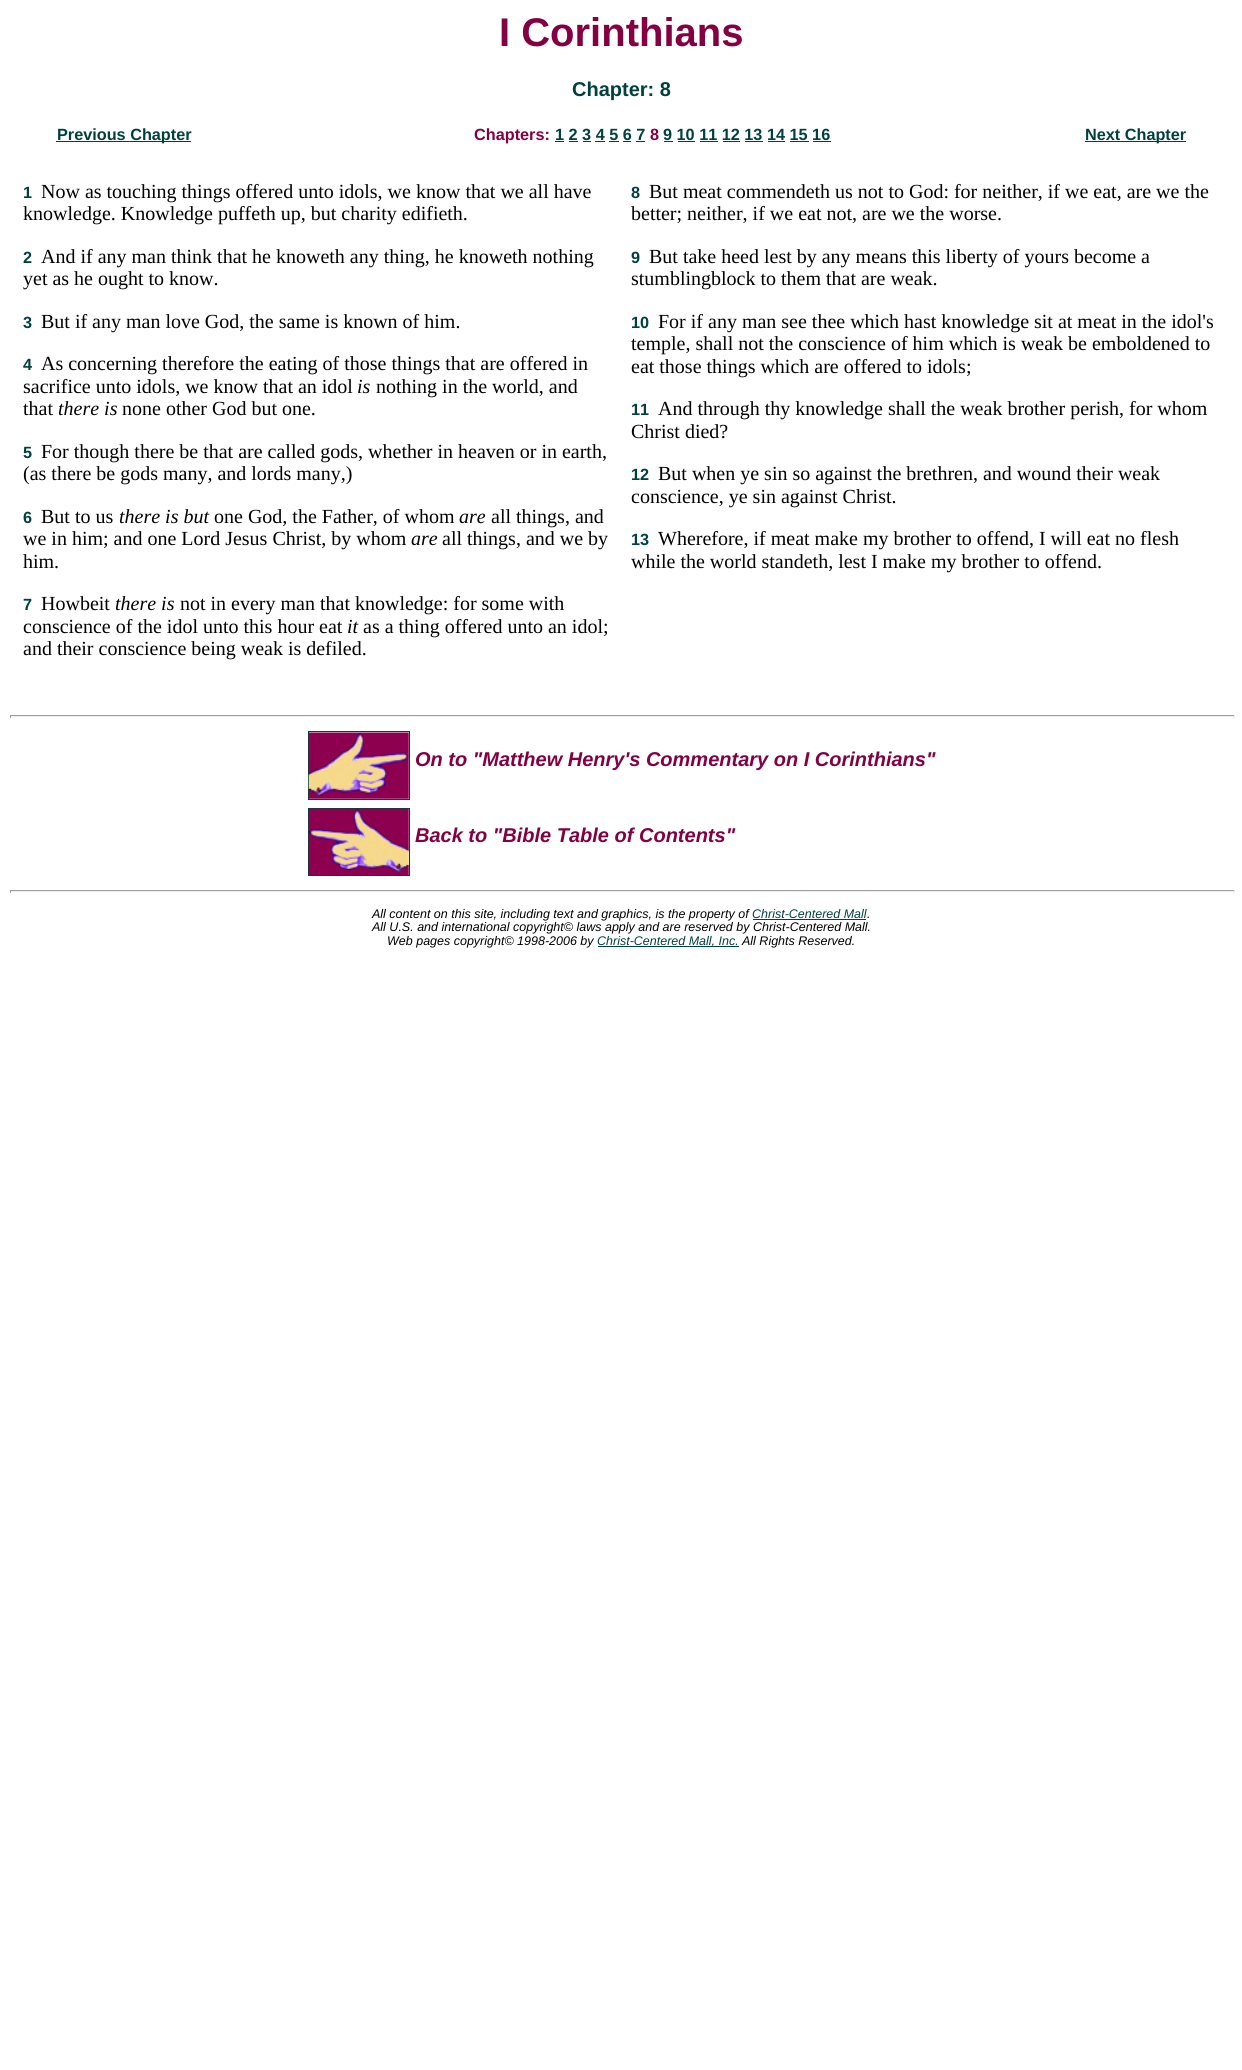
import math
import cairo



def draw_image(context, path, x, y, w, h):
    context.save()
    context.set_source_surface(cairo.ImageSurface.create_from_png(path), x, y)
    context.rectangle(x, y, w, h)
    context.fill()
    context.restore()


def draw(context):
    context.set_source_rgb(1, 1, 1)
    context.paint()
    context.set_source_rgb(0, 65 / 255, 64 / 255)
    context.rectangle(56, 141, 135, 1)
    context.fill()
    context.rectangle(555, 141, 9, 1)
    context.fill()
    context.rectangle(569, 141, 9, 1)
    context.fill()
    context.rectangle(583, 141, 8, 1)
    context.fill()
    context.rectangle(595, 141, 10, 1)
    context.fill()
    context.rectangle(609, 141, 10, 1)
    context.fill()
    context.rectangle(623, 141, 8, 1)
    context.fill()
    context.rectangle(636, 141, 9, 1)
    context.fill()
    context.rectangle(664, 141, 9, 1)
    context.fill()
    context.rectangle(678, 141, 17, 1)
    context.fill()
    context.rectangle(700, 141, 18, 1)
    context.fill()
    context.rectangle(723, 141, 17, 1)
    context.fill()
    context.rectangle(745, 141, 18, 1)
    context.fill()
    context.rectangle(768, 141, 17, 1)
    context.fill()
    context.rectangle(790, 141, 19, 1)
    context.fill()
    context.rectangle(813, 141, 18, 1)
    context.fill()
    context.rectangle(1085, 141, 101, 1)
    context.fill()
    context.set_source_rgb(159 / 255, 159 / 255, 159 / 255)
    context.rectangle(10, 715, 1225, 1)
    context.fill()
    context.set_source_rgb(238 / 255, 238 / 255, 238 / 255)
    context.rectangle(1234, 715, 1, 3)
    context.fill()
    context.rectangle(10, 716, 1225, 1)
    context.fill()
    context.set_source_rgb(159 / 255, 159 / 255, 159 / 255)
    context.rectangle(10, 715, 1, 3)
    context.fill()
    context.rectangle(308.5, 731.5, 101, 68)
    context.set_source_rgb(0, 65 / 255, 64 / 255)
    context.set_line_width(1)
    context.stroke()
    draw_image(context, "images/1.png", 308, 732, 101, 67)
    context.rectangle(308.5, 808.5, 101, 67)
    context.stroke()
    draw_image(context, "images/2.png", 308, 808, 101, 67)
    context.set_source_rgb(159 / 255, 159 / 255, 159 / 255)
    context.rectangle(10, 890, 1225, 1)
    context.fill()
    context.set_source_rgb(238 / 255, 238 / 255, 238 / 255)
    context.rectangle(1234, 890, 1, 3)
    context.fill()
    context.rectangle(10, 891, 1225, 1)
    context.fill()
    context.set_source_rgb(159 / 255, 159 / 255, 159 / 255)
    context.rectangle(10, 890, 1, 3)
    context.fill()
    context.set_source_rgb(0, 65 / 255, 64 / 255)
    context.rectangle(753, 919, 113, 1)
    context.fill()
    context.rectangle(598, 946, 141, 1)
    context.fill()
    context.select_font_face("Liberation Sans", cairo.FontSlant.NORMAL, cairo.FontWeight.BOLD)
    context.set_font_size(40)
    context.set_source_rgb(131 / 255, 0, 66 / 255)
    context.move_to(499, 46)
    context.show_text("I Corinthians")
    context.set_font_size(20)
    context.set_source_rgb(0, 65 / 255, 64 / 255)
    context.move_to(572, 96)
    context.show_text("Chapter: 8")
    context.set_font_size(16.25)
    context.move_to(57, 140)
    context.show_text("Previous Chapter")
    context.set_source_rgb(131 / 255, 0, 66 / 255)
    context.move_to(474, 140)
    context.show_text("Chapters:")
    context.set_source_rgb(0, 65 / 255, 64 / 255)
    context.move_to(555, 140)
    context.show_text("1 2 3 4 5 6 7")
    context.set_source_rgb(131 / 255, 0, 66 / 255)
    context.move_to(650, 140)
    context.show_text("8")
    context.set_source_rgb(0, 65 / 255, 64 / 255)
    context.move_to(663, 140)
    context.show_text("9 10 11 12 13 14 15 16")
    context.move_to(1085, 140)
    context.show_text("Next Chapter")
    context.move_to(23, 198)
    context.show_text("1")
    context.select_font_face("Liberation Serif")
    context.set_font_size(20)
    context.set_source_rgb(0, 0, 0)
    context.move_to(41, 198)
    context.show_text("Now as touching things offered unto idols, we know that we all have")
    context.move_to(23, 220)
    context.show_text("knowledge. Knowledge puffeth up, but charity edifieth.")
    context.select_font_face("Liberation Sans", cairo.FontSlant.NORMAL, cairo.FontWeight.BOLD)
    context.set_font_size(16.25)
    context.set_source_rgb(0, 65 / 255, 64 / 255)
    context.move_to(23, 263)
    context.show_text("2")
    context.select_font_face("Liberation Serif")
    context.set_font_size(20)
    context.set_source_rgb(0, 0, 0)
    context.move_to(41, 263)
    context.show_text("And if any man think that he knoweth any thing, he knoweth nothing")
    context.move_to(23, 285)
    context.show_text("yet as he ought to know.")
    context.select_font_face("Liberation Sans", cairo.FontSlant.NORMAL, cairo.FontWeight.BOLD)
    context.set_font_size(16.25)
    context.set_source_rgb(0, 65 / 255, 64 / 255)
    context.move_to(23, 328)
    context.show_text("3")
    context.select_font_face("Liberation Serif")
    context.set_font_size(20)
    context.set_source_rgb(0, 0, 0)
    context.move_to(41, 328)
    context.show_text("But if any man love God, the same is known of him.")
    context.select_font_face("Liberation Sans", cairo.FontSlant.NORMAL, cairo.FontWeight.BOLD)
    context.set_font_size(16.25)
    context.set_source_rgb(0, 65 / 255, 64 / 255)
    context.move_to(23, 370)
    context.show_text("4")
    context.select_font_face("Liberation Serif")
    context.set_font_size(20)
    context.set_source_rgb(0, 0, 0)
    context.move_to(41, 370)
    context.show_text("As concerning therefore the eating of those things that are offered in")
    context.move_to(23, 393)
    context.show_text("sacrifice unto idols, we know that an idol")
    context.select_font_face("Liberation Serif", cairo.FontSlant.ITALIC)
    context.move_to(357, 393)
    context.show_text("is")
    context.select_font_face("Liberation Serif")
    context.move_to(376, 393)
    context.show_text("nothing in the world, and")
    context.move_to(23, 415)
    context.show_text("that")
    context.select_font_face("Liberation Serif", cairo.FontSlant.ITALIC)
    context.move_to(58, 415)
    context.show_text("there is")
    context.select_font_face("Liberation Serif")
    context.move_to(122, 415)
    context.show_text("none other God but one.")
    context.select_font_face("Liberation Sans", cairo.FontSlant.NORMAL, cairo.FontWeight.BOLD)
    context.set_font_size(16.25)
    context.set_source_rgb(0, 65 / 255, 64 / 255)
    context.move_to(23, 458)
    context.show_text("5")
    context.select_font_face("Liberation Serif")
    context.set_font_size(20)
    context.set_source_rgb(0, 0, 0)
    context.move_to(41, 458)
    context.show_text("For though there be that are called gods, whether in heaven or in earth,")
    context.move_to(23, 480)
    context.show_text("(as there be gods many, and lords many,)")
    context.select_font_face("Liberation Sans", cairo.FontSlant.NORMAL, cairo.FontWeight.BOLD)
    context.set_font_size(16.25)
    context.set_source_rgb(0, 65 / 255, 64 / 255)
    context.move_to(23, 523)
    context.show_text("6")
    context.select_font_face("Liberation Serif")
    context.set_font_size(20)
    context.set_source_rgb(0, 0, 0)
    context.move_to(41, 523)
    context.show_text("But to us")
    context.select_font_face("Liberation Serif", cairo.FontSlant.ITALIC)
    context.move_to(119, 523)
    context.show_text("there is but")
    context.select_font_face("Liberation Serif")
    context.move_to(214, 523)
    context.show_text("one God, the Father, of whom")
    context.select_font_face("Liberation Serif", cairo.FontSlant.ITALIC)
    context.move_to(459, 523)
    context.show_text("are")
    context.select_font_face("Liberation Serif")
    context.move_to(491, 523)
    context.show_text("all things, and")
    context.move_to(23, 545)
    context.show_text("we in him; and one Lord Jesus Christ, by whom")
    context.select_font_face("Liberation Serif", cairo.FontSlant.ITALIC)
    context.move_to(411, 545)
    context.show_text("are")
    context.select_font_face("Liberation Serif")
    context.move_to(442, 545)
    context.show_text("all things, and we by")
    context.move_to(23, 568)
    context.show_text("him.")
    context.select_font_face("Liberation Sans", cairo.FontSlant.NORMAL, cairo.FontWeight.BOLD)
    context.set_font_size(16.25)
    context.set_source_rgb(0, 65 / 255, 64 / 255)
    context.move_to(23, 610)
    context.show_text("7")
    context.select_font_face("Liberation Serif")
    context.set_font_size(20)
    context.set_source_rgb(0, 0, 0)
    context.move_to(41, 610)
    context.show_text("Howbeit")
    context.select_font_face("Liberation Serif", cairo.FontSlant.ITALIC)
    context.move_to(115, 610)
    context.show_text("there is")
    context.select_font_face("Liberation Serif")
    context.move_to(180, 610)
    context.show_text("not in every man that knowledge: for some with")
    context.move_to(23, 633)
    context.show_text("conscience of the idol unto this hour eat")
    context.select_font_face("Liberation Serif", cairo.FontSlant.ITALIC)
    context.move_to(347, 633)
    context.show_text("it")
    context.select_font_face("Liberation Serif")
    context.move_to(363, 633)
    context.show_text("as a thing offered unto an idol;")
    context.move_to(23, 655)
    context.show_text("and their conscience being weak is defiled.")
    context.select_font_face("Liberation Sans", cairo.FontSlant.NORMAL, cairo.FontWeight.BOLD)
    context.set_font_size(16.25)
    context.set_source_rgb(0, 65 / 255, 64 / 255)
    context.move_to(631, 198)
    context.show_text("8")
    context.select_font_face("Liberation Serif")
    context.set_font_size(20)
    context.set_source_rgb(0, 0, 0)
    context.move_to(649, 198)
    context.show_text("But meat commendeth us not to God: for neither, if we eat, are we the")
    context.move_to(631, 220)
    context.show_text("better; neither, if we eat not, are we the worse.")
    context.select_font_face("Liberation Sans", cairo.FontSlant.NORMAL, cairo.FontWeight.BOLD)
    context.set_font_size(16.25)
    context.set_source_rgb(0, 65 / 255, 64 / 255)
    context.move_to(631, 263)
    context.show_text("9")
    context.select_font_face("Liberation Serif")
    context.set_font_size(20)
    context.set_source_rgb(0, 0, 0)
    context.move_to(649, 263)
    context.show_text("But take heed lest by any means this liberty of yours become a")
    context.move_to(631, 285)
    context.show_text("stumblingblock to them that are weak.")
    context.select_font_face("Liberation Sans", cairo.FontSlant.NORMAL, cairo.FontWeight.BOLD)
    context.set_font_size(16.25)
    context.set_source_rgb(0, 65 / 255, 64 / 255)
    context.move_to(631, 328)
    context.show_text("10")
    context.select_font_face("Liberation Serif")
    context.set_font_size(20)
    context.set_source_rgb(0, 0, 0)
    context.move_to(658, 328)
    context.show_text("For if any man see thee which hast knowledge sit at meat in the idol's")
    context.move_to(631, 350)
    context.show_text("temple, shall not the conscience of him which is weak be emboldened to")
    context.move_to(631, 373)
    context.show_text("eat those things which are offered to idols;")
    context.select_font_face("Liberation Sans", cairo.FontSlant.NORMAL, cairo.FontWeight.BOLD)
    context.set_font_size(16.25)
    context.set_source_rgb(0, 65 / 255, 64 / 255)
    context.move_to(631, 415)
    context.show_text("11")
    context.select_font_face("Liberation Serif")
    context.set_font_size(20)
    context.set_source_rgb(0, 0, 0)
    context.move_to(658, 415)
    context.show_text("And through thy knowledge shall the weak brother perish, for whom")
    context.move_to(631, 438)
    context.show_text("Christ died?")
    context.select_font_face("Liberation Sans", cairo.FontSlant.NORMAL, cairo.FontWeight.BOLD)
    context.set_font_size(16.25)
    context.set_source_rgb(0, 65 / 255, 64 / 255)
    context.move_to(631, 480)
    context.show_text("12")
    context.select_font_face("Liberation Serif")
    context.set_font_size(20)
    context.set_source_rgb(0, 0, 0)
    context.move_to(658, 480)
    context.show_text("But when ye sin so against the brethren, and wound their weak")
    context.move_to(631, 503)
    context.show_text("conscience, ye sin against Christ.")
    context.select_font_face("Liberation Sans", cairo.FontSlant.NORMAL, cairo.FontWeight.BOLD)
    context.set_font_size(16.25)
    context.set_source_rgb(0, 65 / 255, 64 / 255)
    context.move_to(631, 545)
    context.show_text("13")
    context.select_font_face("Liberation Serif")
    context.set_font_size(20)
    context.set_source_rgb(0, 0, 0)
    context.move_to(658, 545)
    context.show_text("Wherefore, if meat make my brother to offend, I will eat no flesh")
    context.move_to(631, 568)
    context.show_text("while the world standeth, lest I make my brother to offend.")
    context.select_font_face("Liberation Sans", cairo.FontSlant.ITALIC, cairo.FontWeight.BOLD)
    context.set_source_rgb(131 / 255, 0, 66 / 255)
    context.move_to(415, 766)
    context.show_text("On to \"Matthew Henry's Commentary on I Corinthians\"")
    context.move_to(415, 842)
    context.show_text("Back to \"Bible Table of Contents\"")
    context.select_font_face("Liberation Sans", cairo.FontSlant.ITALIC)
    context.set_font_size(12.5)
    context.set_source_rgb(0, 0, 0)
    context.move_to(372, 918)
    context.show_text("All content on this site, including text and graphics, is the property of")
    context.set_source_rgb(0, 65 / 255, 64 / 255)
    context.move_to(752, 918)
    context.show_text("Christ-Centered Mall")
    context.set_source_rgb(0, 0, 0)
    context.move_to(867, 918)
    context.show_text(".")
    context.move_to(372, 931)
    context.show_text("All U.S. and international copyright© laws apply and are reserved by Christ-Centered Mall.")
    context.move_to(387, 945)
    context.show_text("Web pages copyright© 1998-2006 by")
    context.set_source_rgb(0, 65 / 255, 64 / 255)
    context.move_to(597, 945)
    context.show_text("Christ-Centered Mall, Inc.")
    context.set_source_rgb(0, 0, 0)
    context.move_to(742, 945)
    context.show_text("All Rights Reserved.")


surface = cairo.ImageSurface(cairo.Format.RGB24, 1242, 2070)
context = cairo.Context(surface)
options = cairo.FontOptions()
options.set_hint_metrics(cairo.HintMetrics.OFF)
options.set_hint_style(cairo.HintStyle.NONE)
context.set_font_options(options)
context.set_miter_limit(4)
draw(context)
surface.write_to_png("out.png")
